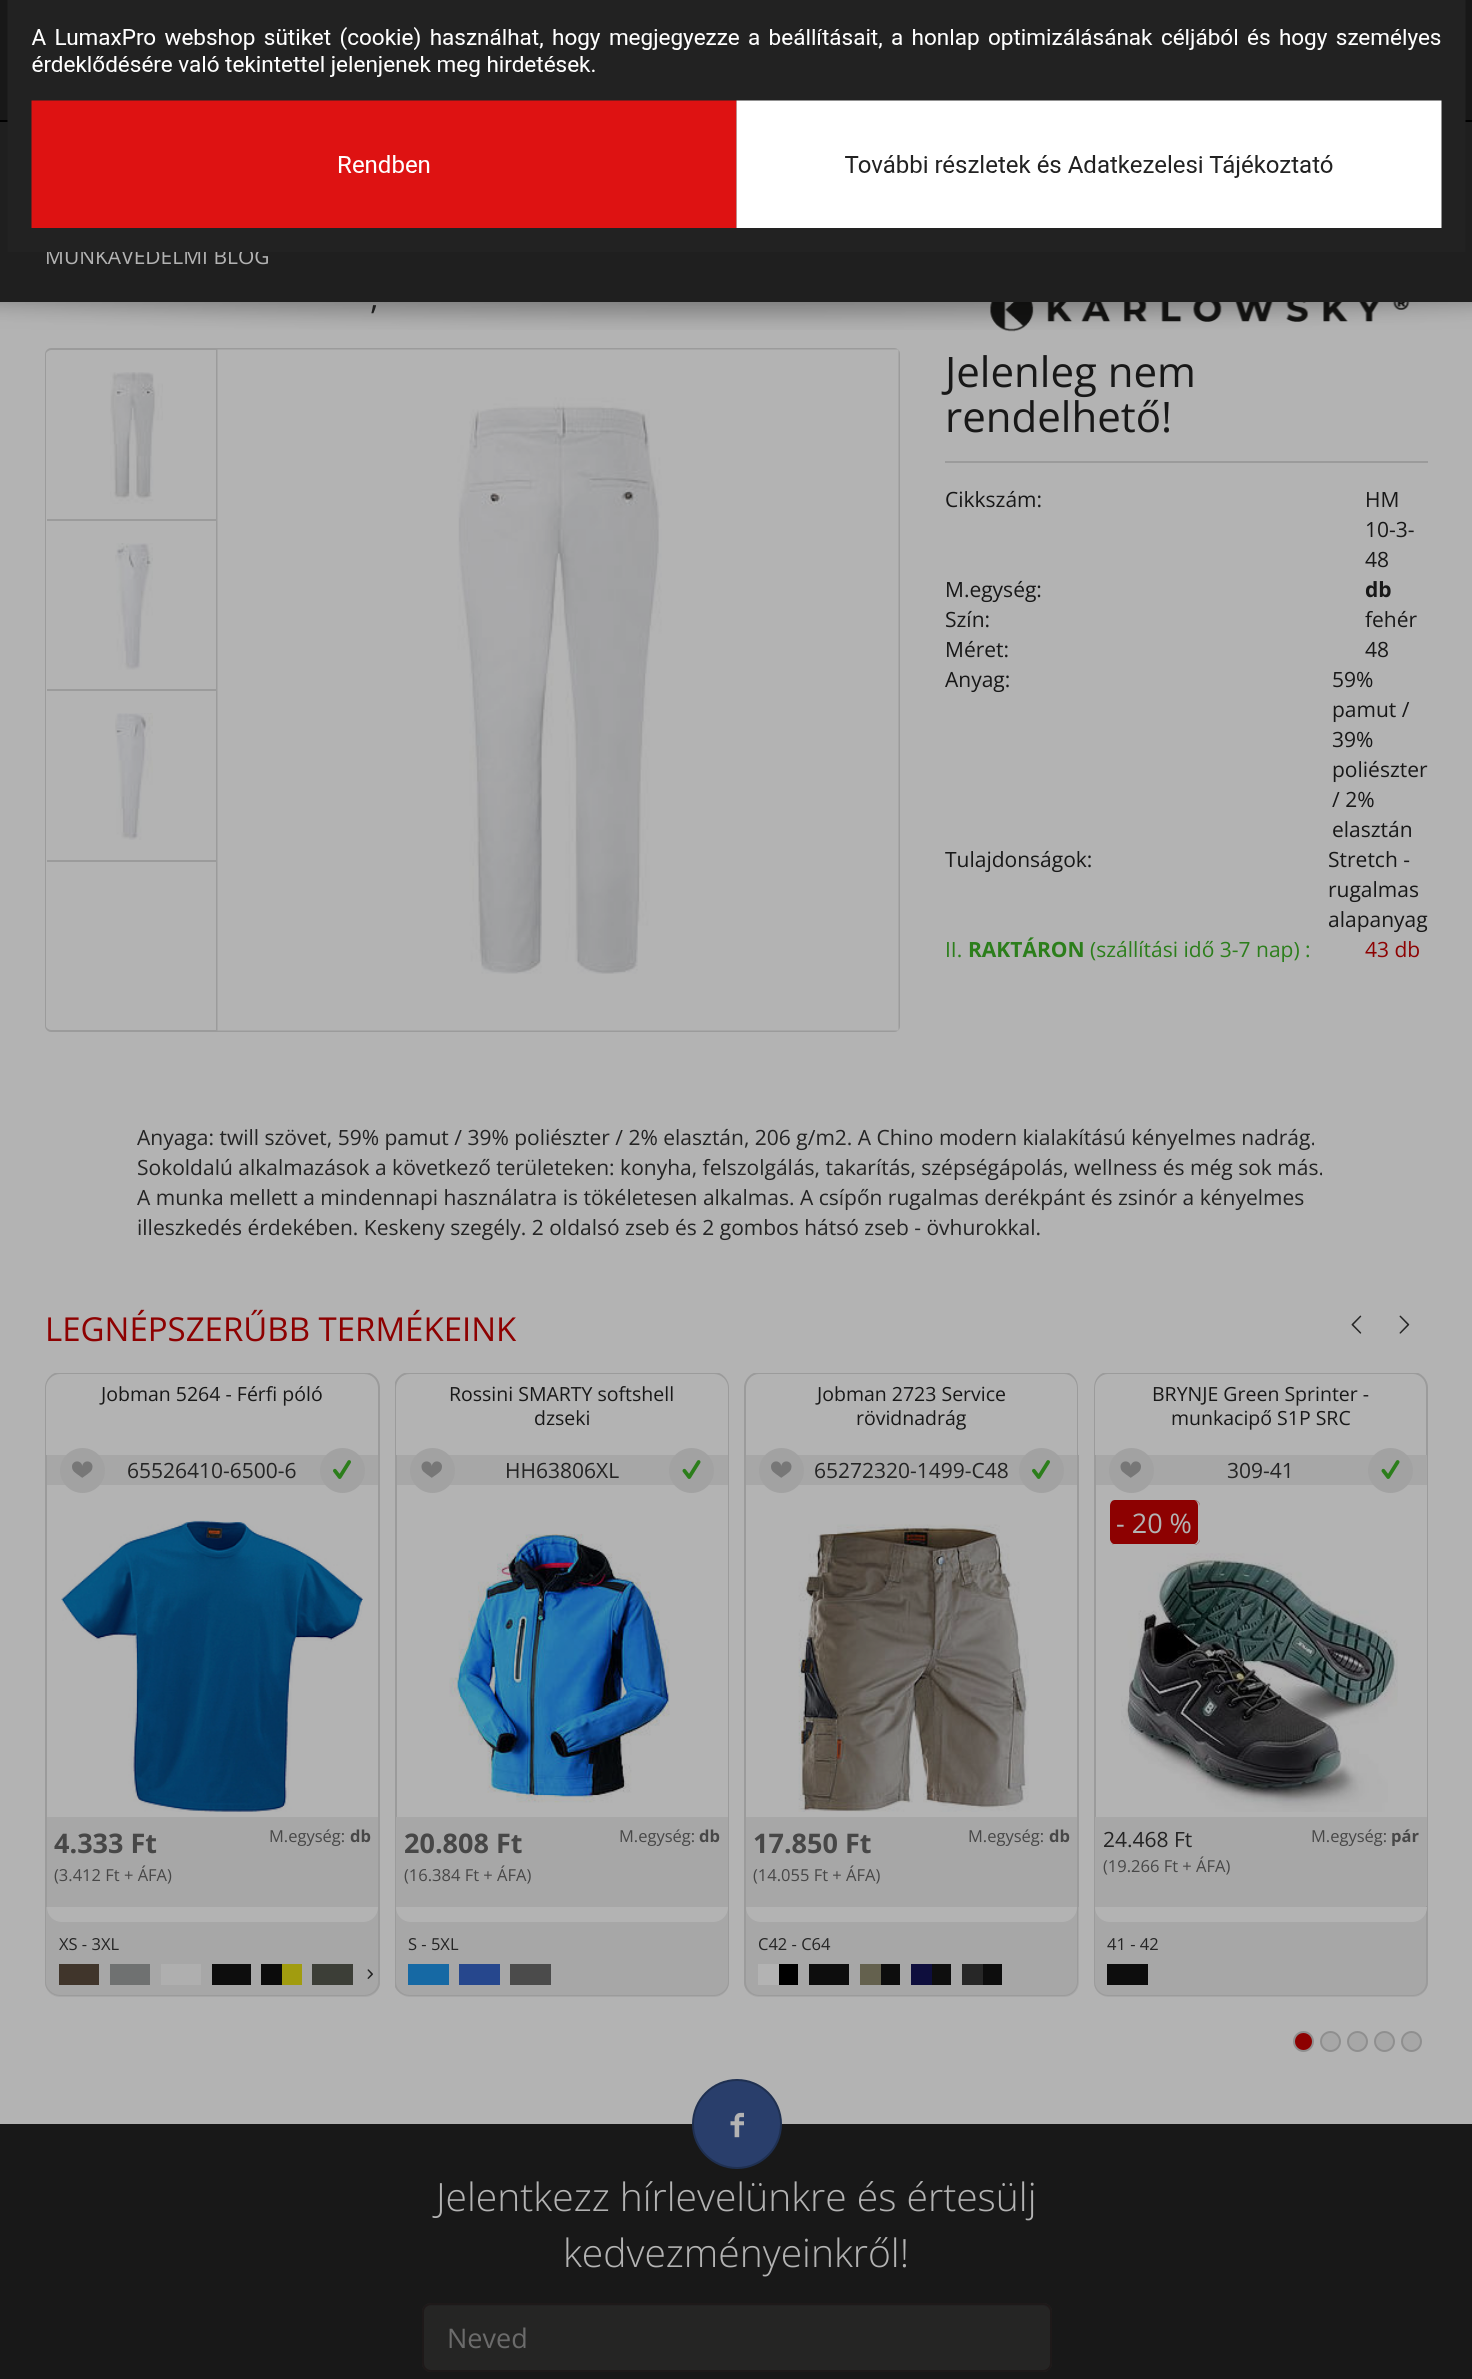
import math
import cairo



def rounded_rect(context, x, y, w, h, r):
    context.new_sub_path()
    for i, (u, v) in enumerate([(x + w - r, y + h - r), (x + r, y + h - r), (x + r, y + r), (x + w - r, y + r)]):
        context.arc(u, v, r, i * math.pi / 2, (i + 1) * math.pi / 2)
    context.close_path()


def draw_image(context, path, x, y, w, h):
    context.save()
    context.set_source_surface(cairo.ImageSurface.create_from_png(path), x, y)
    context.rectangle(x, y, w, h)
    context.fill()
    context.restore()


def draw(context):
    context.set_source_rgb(179 / 255, 179 / 255, 179 / 255)
    context.paint()
    context.set_source_rgb(24 / 255, 24 / 255, 24 / 255)
    context.rectangle(0, 0, 1472, 120)
    context.fill()
    context.set_source_rgb(0, 0, 0)
    context.rectangle(0, 120, 1472, 2)
    context.fill()
    context.set_source_rgb(31 / 255, 31 / 255, 31 / 255)
    context.rectangle(0, 122, 1472, 180)
    context.fill()
    draw_image(context, "images/3.png", 990, 302, 420, 30)
    context.set_source_rgb(155 / 255, 155 / 255, 155 / 255)
    context.set_fill_rule(cairo.FillRule.EVEN_ODD)
    context.new_path()
    context.move_to(51, 348)
    context.line_to(216, 348)
    context.line_to(216, 1032)
    context.line_to(51, 1032)
    context.curve_to(48, 1032, 45, 1029, 45, 1026)
    context.line_to(45, 354)
    context.curve_to(45, 351, 48, 348, 51, 348)
    context.close_path()
    context.move_to(51, 350)
    context.line_to(216, 350)
    context.line_to(216, 1030)
    context.line_to(51, 1030)
    context.curve_to(49, 1030, 46, 1028, 46, 1026)
    context.line_to(46, 354)
    context.curve_to(46, 352, 49, 350, 51, 350)
    context.close_path()
    context.fill()
    context.rectangle(47, 519, 169, 2)
    context.fill()
    draw_image(context, "images/4.png", 110, 372, 53, 132)
    context.rectangle(47, 689, 169, 2)
    context.fill()
    draw_image(context, "images/5.png", 115, 543, 38, 127)
    context.rectangle(47, 860, 169, 2)
    context.fill()
    draw_image(context, "images/6.png", 115, 713, 38, 127)
    context.new_path()
    context.move_to(217, 349)
    context.line_to(894, 349)
    context.curve_to(897, 349, 899, 351, 899, 354)
    context.line_to(899, 1026)
    context.curve_to(899, 1029, 897, 1031, 894, 1031)
    context.line_to(217, 1031)
    context.close_path()
    context.stroke()
    draw_image(context, "images/7.png", 217, 349, 682, 682)
    context.rectangle(945, 461, 483, 2)
    context.fill()
    draw_image(context, "images/8.png", 1351, 1315, 11, 19)
    draw_image(context, "images/9.png", 1399, 1315, 11, 19)
    context.save()
    context.set_fill_rule(cairo.FillRule.WINDING)
    context.rectangle(45, 1373, 335, 639)
    context.clip()
    context.set_fill_rule(cairo.FillRule.EVEN_ODD)
    context.new_path()
    context.move_to(60, 1372)
    context.line_to(364, 1372)
    context.curve_to(373, 1372, 380, 1379, 380, 1388)
    context.line_to(380, 1470)
    context.line_to(45, 1470)
    context.line_to(45, 1388)
    context.curve_to(45, 1379, 52, 1372, 60, 1372)
    context.close_path()
    context.move_to(60, 1374)
    context.line_to(364, 1374)
    context.curve_to(372, 1374, 378, 1380, 378, 1388)
    context.line_to(378, 1470)
    context.line_to(46, 1470)
    context.line_to(46, 1388)
    context.curve_to(46, 1380, 53, 1374, 60, 1374)
    context.close_path()
    context.fill()
    context.restore()
    context.set_source_rgb(167 / 255, 167 / 255, 167 / 255)
    context.rectangle(47, 1455, 331, 30)
    context.fill()
    context.set_source_rgb(162 / 255, 162 / 255, 162 / 255)
    context.arc(82.5, 1470.5, 21.5, 0, 2 * math.pi)
    context.fill_preserve()
    context.stroke()
    draw_image(context, "images/10.png", 72, 1461, 21, 17)
    context.arc(342.5, 1470.5, 21.5, 0, 2 * math.pi)
    context.fill_preserve()
    context.stroke()
    draw_image(context, "images/11.png", 333, 1460, 18, 19)
    context.set_source_rgb(155 / 255, 155 / 255, 155 / 255)
    context.rectangle(378, 1470, 2, 437)
    context.fill()
    context.rectangle(45, 1455, 2, 452)
    context.fill()
    draw_image(context, "images/12.png", 61, 1520, 302, 292)
    context.set_source_rgb(167 / 255, 167 / 255, 167 / 255)
    context.rectangle(47, 1817, 331, 90)
    context.fill()
    context.new_path()
    context.move_to(45, 1907)
    context.line_to(380, 1907)
    context.line_to(380, 1982)
    context.curve_to(380, 1990.5, 373.5, 1997, 365, 1997)
    context.line_to(60, 1997)
    context.curve_to(51.5, 1997, 45, 1990.5, 45, 1982)
    context.close_path()
    context.fill()
    context.set_source_rgb(155 / 255, 155 / 255, 155 / 255)
    context.new_path()
    context.move_to(45, 1906)
    context.line_to(380, 1906)
    context.line_to(380, 1982)
    context.curve_to(380, 1990, 373, 1996, 364, 1996)
    context.line_to(60, 1996)
    context.curve_to(52, 1996, 45, 1990, 45, 1982)
    context.close_path()
    context.move_to(46, 1906)
    context.line_to(378, 1906)
    context.line_to(378, 1982)
    context.curve_to(378, 1989, 372, 1995, 364, 1995)
    context.line_to(60, 1995)
    context.curve_to(53, 1995, 46, 1989, 46, 1982)
    context.close_path()
    context.fill()
    context.set_source_rgb(179 / 255, 179 / 255, 179 / 255)
    context.new_path()
    context.move_to(47, 1907)
    context.line_to(378, 1907)
    context.curve_to(378, 1915.5, 371.5, 1922, 363, 1922)
    context.line_to(62, 1922)
    context.curve_to(53.5, 1922, 47, 1915.5, 47, 1907)
    context.close_path()
    context.fill()
    context.set_source_rgb(64 / 255, 53 / 255, 43 / 255)
    context.rectangle(59, 1964, 40, 21)
    context.fill()
    context.set_source_rgb(111 / 255, 113 / 255, 113 / 255)
    context.rectangle(110, 1964, 40, 21)
    context.fill()
    context.set_source_rgb(175 / 255, 175 / 255, 175 / 255)
    context.rectangle(161, 1964, 40, 21)
    context.fill()
    context.set_source_rgb(13 / 255, 13 / 255, 13 / 255)
    context.rectangle(212, 1964, 39, 21)
    context.fill()
    context.set_source_rgb(11 / 255, 11 / 255, 11 / 255)
    context.rectangle(261, 1964, 21, 21)
    context.fill()
    context.set_source_rgb(161 / 255, 156 / 255, 15 / 255)
    context.rectangle(282, 1964, 20, 21)
    context.fill()
    context.set_source_rgb(60 / 255, 62 / 255, 55 / 255)
    context.rectangle(312, 1964, 41, 21)
    context.fill()
    draw_image(context, "images/13.png", 367, 1969, 6, 10)
    context.save()
    context.set_fill_rule(cairo.FillRule.WINDING)
    context.rectangle(395, 1373, 334, 639)
    context.clip()
    context.set_source_rgb(155 / 255, 155 / 255, 155 / 255)
    context.set_fill_rule(cairo.FillRule.EVEN_ODD)
    context.new_path()
    context.move_to(410, 1372)
    context.line_to(714, 1372)
    context.curve_to(722, 1372, 729, 1379, 729, 1388)
    context.line_to(729, 1470)
    context.line_to(394, 1470)
    context.line_to(394, 1388)
    context.curve_to(394, 1379, 401, 1372, 410, 1372)
    context.close_path()
    context.move_to(410, 1374)
    context.line_to(714, 1374)
    context.curve_to(721, 1374, 728, 1380, 728, 1388)
    context.line_to(728, 1470)
    context.line_to(396, 1470)
    context.line_to(396, 1388)
    context.curve_to(396, 1380, 402, 1374, 410, 1374)
    context.close_path()
    context.fill()
    context.restore()
    context.set_source_rgb(167 / 255, 167 / 255, 167 / 255)
    context.rectangle(397, 1455, 331, 30)
    context.fill()
    context.set_source_rgb(162 / 255, 162 / 255, 162 / 255)
    context.arc(432.5, 1470.5, 21.5, 0, 2 * math.pi)
    context.fill_preserve()
    context.stroke()
    draw_image(context, "images/14.png", 421, 1461, 21, 17)
    context.arc(691.5, 1470.5, 21.5, 0, 2 * math.pi)
    context.fill_preserve()
    context.stroke()
    draw_image(context, "images/15.png", 682, 1460, 19, 19)
    context.set_source_rgb(155 / 255, 155 / 255, 155 / 255)
    context.rectangle(728, 1470, 1, 437)
    context.fill()
    context.rectangle(395, 1455, 2, 452)
    context.fill()
    draw_image(context, "images/16.png", 449, 1534, 221, 269)
    context.set_source_rgb(167 / 255, 167 / 255, 167 / 255)
    context.rectangle(396, 1817, 332, 90)
    context.fill()
    context.new_path()
    context.move_to(395, 1907)
    context.line_to(729, 1907)
    context.line_to(729, 1982)
    context.curve_to(729, 1990.5, 722.5, 1997, 714, 1997)
    context.line_to(410, 1997)
    context.curve_to(401.5, 1997, 395, 1990.5, 395, 1982)
    context.close_path()
    context.fill()
    context.save()
    context.set_fill_rule(cairo.FillRule.WINDING)
    context.rectangle(395, 1373, 334, 639)
    context.clip()
    context.set_source_rgb(155 / 255, 155 / 255, 155 / 255)
    context.set_fill_rule(cairo.FillRule.EVEN_ODD)
    context.new_path()
    context.move_to(394, 1906)
    context.line_to(729, 1906)
    context.line_to(729, 1982)
    context.curve_to(729, 1990, 722, 1996, 714, 1996)
    context.line_to(410, 1996)
    context.curve_to(401, 1996, 394, 1990, 394, 1982)
    context.close_path()
    context.move_to(396, 1906)
    context.line_to(728, 1906)
    context.line_to(728, 1982)
    context.curve_to(728, 1989, 721, 1995, 714, 1995)
    context.line_to(410, 1995)
    context.curve_to(402, 1995, 396, 1989, 396, 1982)
    context.close_path()
    context.fill()
    context.restore()
    context.set_source_rgb(179 / 255, 179 / 255, 179 / 255)
    context.new_path()
    context.move_to(396, 1907)
    context.line_to(728, 1907)
    context.curve_to(728, 1915.5, 721.5, 1922, 713, 1922)
    context.line_to(411, 1922)
    context.curve_to(402.5, 1922, 396, 1915.5, 396, 1907)
    context.close_path()
    context.fill()
    context.set_source_rgb(22 / 255, 105 / 255, 164 / 255)
    context.rectangle(408, 1964, 41, 21)
    context.fill()
    context.set_source_rgb(38 / 255, 71 / 255, 141 / 255)
    context.rectangle(459, 1964, 41, 21)
    context.fill()
    context.set_source_rgb(75 / 255, 75 / 255, 75 / 255)
    context.rectangle(510, 1964, 41, 21)
    context.fill()
    context.save()
    context.set_fill_rule(cairo.FillRule.WINDING)
    context.rectangle(744, 1373, 335, 639)
    context.clip()
    context.set_source_rgb(155 / 255, 155 / 255, 155 / 255)
    context.set_fill_rule(cairo.FillRule.EVEN_ODD)
    context.new_path()
    context.move_to(759, 1372)
    context.line_to(1064, 1372)
    context.curve_to(1072, 1372, 1078, 1379, 1078, 1388)
    context.line_to(1078, 1470)
    context.line_to(744, 1470)
    context.line_to(744, 1388)
    context.curve_to(744, 1379, 751, 1372, 759, 1372)
    context.close_path()
    context.move_to(759, 1374)
    context.line_to(1064, 1374)
    context.curve_to(1071, 1374, 1077, 1380, 1077, 1388)
    context.line_to(1077, 1470)
    context.line_to(746, 1470)
    context.line_to(746, 1388)
    context.curve_to(746, 1380, 752, 1374, 759, 1374)
    context.close_path()
    context.fill()
    context.restore()
    context.set_source_rgb(167 / 255, 167 / 255, 167 / 255)
    context.rectangle(746, 1455, 331, 30)
    context.fill()
    context.set_source_rgb(162 / 255, 162 / 255, 162 / 255)
    context.arc(781.5, 1470.5, 21.5, 0, 2 * math.pi)
    context.fill_preserve()
    context.stroke()
    draw_image(context, "images/10.png", 771, 1461, 21, 17)
    context.arc(1041.5, 1470.5, 21.5, 0, 2 * math.pi)
    context.fill_preserve()
    context.stroke()
    draw_image(context, "images/11.png", 1032, 1460, 18, 19)
    context.set_source_rgb(155 / 255, 155 / 255, 155 / 255)
    context.rectangle(1077, 1455, 2, 452)
    context.fill()
    context.rectangle(744, 1470, 2, 437)
    context.fill()
    draw_image(context, "images/17.png", 798, 1524, 231, 288)
    context.set_source_rgb(167 / 255, 167 / 255, 167 / 255)
    context.rectangle(746, 1817, 331, 90)
    context.fill()
    context.new_path()
    context.move_to(744, 1907)
    context.line_to(1079, 1907)
    context.line_to(1079, 1982)
    context.curve_to(1079, 1990.5, 1072.5, 1997, 1064, 1997)
    context.line_to(759, 1997)
    context.curve_to(750.5, 1997, 744, 1990.5, 744, 1982)
    context.close_path()
    context.fill()
    context.set_source_rgb(155 / 255, 155 / 255, 155 / 255)
    context.new_path()
    context.move_to(744, 1906)
    context.line_to(1078, 1906)
    context.line_to(1078, 1982)
    context.curve_to(1078, 1990, 1072, 1996, 1064, 1996)
    context.line_to(759, 1996)
    context.curve_to(751, 1996, 744, 1990, 744, 1982)
    context.close_path()
    context.move_to(746, 1906)
    context.line_to(1077, 1906)
    context.line_to(1077, 1982)
    context.curve_to(1077, 1989, 1071, 1995, 1064, 1995)
    context.line_to(759, 1995)
    context.curve_to(752, 1995, 746, 1989, 746, 1982)
    context.close_path()
    context.fill()
    context.set_source_rgb(179 / 255, 179 / 255, 179 / 255)
    context.new_path()
    context.move_to(746, 1907)
    context.line_to(1077, 1907)
    context.curve_to(1077, 1915.5, 1070.5, 1922, 1062, 1922)
    context.line_to(761, 1922)
    context.curve_to(752.5, 1922, 746, 1915.5, 746, 1907)
    context.close_path()
    context.fill()
    context.rectangle(758, 1964, 21, 21)
    context.fill()
    context.set_source_rgb(0, 0, 0)
    context.rectangle(779, 1964, 19, 21)
    context.fill()
    context.set_source_rgb(13 / 255, 13 / 255, 13 / 255)
    context.rectangle(809, 1964, 40, 21)
    context.fill()
    context.set_source_rgb(100 / 255, 97 / 255, 78 / 255)
    context.rectangle(860, 1964, 21, 21)
    context.fill()
    context.set_source_rgb(13 / 255, 13 / 255, 13 / 255)
    context.rectangle(881, 1964, 19, 21)
    context.fill()
    context.set_source_rgb(14 / 255, 14 / 255, 61 / 255)
    context.rectangle(911, 1964, 21, 21)
    context.fill()
    context.set_source_rgb(14 / 255, 14 / 255, 14 / 255)
    context.rectangle(932, 1964, 19, 21)
    context.fill()
    context.set_source_rgb(39 / 255, 39 / 255, 39 / 255)
    context.rectangle(962, 1964, 21, 21)
    context.fill()
    context.set_source_rgb(13 / 255, 13 / 255, 13 / 255)
    context.rectangle(983, 1964, 19, 21)
    context.fill()
    context.save()
    context.set_fill_rule(cairo.FillRule.WINDING)
    context.rectangle(1094, 1373, 334, 639)
    context.clip()
    context.set_source_rgb(155 / 255, 155 / 255, 155 / 255)
    context.set_fill_rule(cairo.FillRule.EVEN_ODD)
    context.new_path()
    context.move_to(1108, 1372)
    context.line_to(1413, 1372)
    context.curve_to(1421, 1372, 1428, 1379, 1428, 1388)
    context.line_to(1428, 1470)
    context.line_to(1094, 1470)
    context.line_to(1094, 1388)
    context.curve_to(1094, 1379, 1100, 1372, 1108, 1372)
    context.close_path()
    context.move_to(1108, 1374)
    context.line_to(1413, 1374)
    context.curve_to(1420, 1374, 1426, 1380, 1426, 1388)
    context.line_to(1426, 1470)
    context.line_to(1095, 1470)
    context.line_to(1095, 1388)
    context.curve_to(1095, 1380, 1101, 1374, 1108, 1374)
    context.close_path()
    context.fill()
    context.restore()
    context.set_source_rgb(167 / 255, 167 / 255, 167 / 255)
    context.rectangle(1096, 1455, 331, 30)
    context.fill()
    context.set_source_rgb(162 / 255, 162 / 255, 162 / 255)
    context.arc(1131.5, 1470.5, 21.5, 0, 2 * math.pi)
    context.fill_preserve()
    context.stroke()
    draw_image(context, "images/14.png", 1120, 1461, 21, 17)
    context.arc(1390.5, 1470.5, 21.5, 0, 2 * math.pi)
    context.fill_preserve()
    context.stroke()
    draw_image(context, "images/15.png", 1381, 1460, 19, 19)
    context.set_source_rgb(155 / 255, 155 / 255, 155 / 255)
    context.rectangle(1427, 1470, 1, 437)
    context.fill()
    context.rectangle(1094, 1455, 2, 452)
    context.fill()
    context.set_source_rgb(141 / 255, 1 / 255, 1 / 255)
    rounded_rect(context, 1109, 1500, 91, 45, 6)
    context.fill()
    context.set_source_rgb(179 / 255, 179 / 255, 179 / 255)
    context.new_path()
    context.move_to(1114, 1500)
    context.line_to(1194, 1500)
    context.curve_to(1197, 1500, 1200, 1503, 1200, 1506)
    context.line_to(1200, 1539)
    context.curve_to(1200, 1542, 1197, 1545, 1194, 1545)
    context.line_to(1114, 1545)
    context.curve_to(1111, 1545, 1108, 1542, 1108, 1539)
    context.line_to(1108, 1506)
    context.curve_to(1108, 1503, 1111, 1500, 1114, 1500)
    context.close_path()
    context.move_to(1114, 1500)
    context.line_to(1194, 1500)
    context.curve_to(1196, 1500, 1198, 1503, 1198, 1506)
    context.line_to(1198, 1539)
    context.curve_to(1198, 1541, 1196, 1544, 1194, 1544)
    context.line_to(1114, 1544)
    context.curve_to(1112, 1544, 1110, 1541, 1110, 1539)
    context.line_to(1110, 1506)
    context.curve_to(1110, 1503, 1112, 1500, 1114, 1500)
    context.close_path()
    context.fill()
    draw_image(context, "images/18.png", 1121, 1553, 277, 259)
    context.set_source_rgb(167 / 255, 167 / 255, 167 / 255)
    context.rectangle(1095, 1817, 332, 90)
    context.fill()
    context.new_path()
    context.move_to(1094, 1907)
    context.line_to(1428, 1907)
    context.line_to(1428, 1982)
    context.curve_to(1428, 1990.5, 1421.5, 1997, 1413, 1997)
    context.line_to(1109, 1997)
    context.curve_to(1100.5, 1997, 1094, 1990.5, 1094, 1982)
    context.close_path()
    context.fill()
    context.set_source_rgb(155 / 255, 155 / 255, 155 / 255)
    context.new_path()
    context.move_to(1094, 1906)
    context.line_to(1428, 1906)
    context.line_to(1428, 1982)
    context.curve_to(1428, 1990, 1421, 1996, 1413, 1996)
    context.line_to(1108, 1996)
    context.curve_to(1100, 1996, 1094, 1990, 1094, 1982)
    context.close_path()
    context.move_to(1095, 1906)
    context.line_to(1426, 1906)
    context.line_to(1426, 1982)
    context.curve_to(1426, 1989, 1420, 1995, 1413, 1995)
    context.line_to(1108, 1995)
    context.curve_to(1101, 1995, 1095, 1989, 1095, 1982)
    context.close_path()
    context.fill()
    context.set_source_rgb(179 / 255, 179 / 255, 179 / 255)
    context.new_path()
    context.move_to(1095, 1907)
    context.line_to(1427, 1907)
    context.curve_to(1427, 1915.5, 1420.5, 1922, 1412, 1922)
    context.line_to(1110, 1922)
    context.curve_to(1101.5, 1922, 1095, 1915.5, 1095, 1907)
    context.close_path()
    context.fill()
    context.set_source_rgb(13 / 255, 13 / 255, 13 / 255)
    context.rectangle(1107, 1964, 41, 21)
    context.fill()
    context.set_source_rgb(141 / 255, 1 / 255, 1 / 255)
    context.arc(1303.5, 2041.5, 9.5, 0, 2 * math.pi)
    context.fill_preserve()
    context.set_source_rgb(143 / 255, 143 / 255, 143 / 255)
    context.stroke()
    context.set_source_rgb(167 / 255, 167 / 255, 167 / 255)
    context.arc(1330.5, 2041.5, 9.5, 0, 2 * math.pi)
    context.fill_preserve()
    context.set_source_rgb(143 / 255, 143 / 255, 143 / 255)
    context.stroke()
    context.set_source_rgb(167 / 255, 167 / 255, 167 / 255)
    context.arc(1357.5, 2041.5, 9.5, 0, 2 * math.pi)
    context.fill_preserve()
    context.set_source_rgb(143 / 255, 143 / 255, 143 / 255)
    context.stroke()
    context.set_source_rgb(167 / 255, 167 / 255, 167 / 255)
    context.arc(1384.5, 2041.5, 9.5, 0, 2 * math.pi)
    context.fill_preserve()
    context.set_source_rgb(143 / 255, 143 / 255, 143 / 255)
    context.stroke()
    context.set_source_rgb(167 / 255, 167 / 255, 167 / 255)
    context.arc(1411.5, 2041.5, 9.5, 0, 2 * math.pi)
    context.fill_preserve()
    context.set_source_rgb(143 / 255, 143 / 255, 143 / 255)
    context.stroke()
    context.set_source_rgb(24 / 255, 24 / 255, 24 / 255)
    context.rectangle(0, 2124, 1472, 255)
    context.fill()
    context.set_source_rgb(41 / 255, 62 / 255, 107 / 255)
    context.arc(737, 2124, 44, 0, 2 * math.pi)
    context.fill_preserve()
    context.set_source_rgb(31 / 255, 48 / 255, 81 / 255)
    context.stroke()
    draw_image(context, "images/19.png", 730, 2112, 14, 26)
    context.set_source_rgb(37 / 255, 37 / 255, 36 / 255)
    rounded_rect(context, 422, 2303, 630, 69, 9)
    context.fill()
    context.set_source_rgb(34 / 255, 34 / 255, 34 / 255)
    context.set_fill_rule(cairo.FillRule.WINDING)
    context.new_path()
    context.move_to(430, 2306)
    context.line_to(1042, 2306)
    context.curve_to(1047, 2306, 1050, 2309, 1050, 2313)
    context.curve_to(1050, 2308, 1047, 2304, 1042, 2304)
    context.line_to(431, 2304)
    context.curve_to(426, 2304, 423, 2308, 423, 2313)
    context.curve_to(423, 2309, 426, 2306, 430, 2306)
    context.close_path()
    context.fill()
    rounded_rect(context, 423, 2304, 628, 67, 8)
    context.set_source_rgb(30 / 255, 25 / 255, 25 / 255)
    context.stroke()
    context.select_font_face("Open Sans")
    context.set_font_size(21)
    context.set_source_rgb(179 / 255, 179 / 255, 179 / 255)
    context.move_to(45, 264)
    context.show_text("MUNKAVÉDELMI BLOG")
    draw_image(context, "images/1.png", 7, 0, 1459, 252)
    context.set_font_size(33)
    context.set_source_rgb(36 / 255, 36 / 255, 36 / 255)
    context.move_to(370, 309)
    context.show_text(",")
    draw_image(context, "images/2.png", 0, 302, 1472, 28)
    context.set_font_size(42)
    context.set_source_rgb(24 / 255, 24 / 255, 24 / 255)
    context.move_to(945, 387)
    context.show_text("Jelenleg nem")
    context.move_to(945, 432)
    context.show_text("rendelhető!")
    context.set_font_size(21)
    context.move_to(945, 507)
    context.show_text("Cikkszám:")
    context.move_to(1365, 507)
    context.show_text("HM")
    context.move_to(1365, 537)
    context.show_text("10-3-")
    context.move_to(1365, 567)
    context.show_text("48")
    context.move_to(945, 597)
    context.show_text("M.egység:")
    context.select_font_face("Open Sans", cairo.FontSlant.NORMAL, cairo.FontWeight.BOLD)
    context.move_to(1365, 597)
    context.show_text("db")
    context.select_font_face("Open Sans")
    context.move_to(945, 627)
    context.show_text("Szín:")
    context.move_to(1365, 627)
    context.show_text("fehér")
    context.move_to(945, 657)
    context.show_text("Méret:")
    context.move_to(1365, 657)
    context.show_text("48")
    context.move_to(945, 687)
    context.show_text("Anyag:")
    context.move_to(1332, 687)
    context.show_text("59%")
    context.move_to(1332, 717)
    context.show_text("pamut /")
    context.move_to(1332, 747)
    context.show_text("39%")
    context.move_to(1332, 777)
    context.show_text("poliészter")
    context.move_to(1332, 807)
    context.show_text("/ 2%")
    context.move_to(1332, 837)
    context.show_text("elasztán")
    context.move_to(945, 867)
    context.show_text("Tulajdonságok:")
    context.move_to(1328, 867)
    context.show_text("Stretch -")
    context.move_to(1328, 897)
    context.show_text("rugalmas")
    context.move_to(1328, 927)
    context.show_text("alapanyag")
    context.set_source_rgb(44 / 255, 126 / 255, 27 / 255)
    context.move_to(945, 957)
    context.show_text("II.")
    context.select_font_face("Open Sans", cairo.FontSlant.NORMAL, cairo.FontWeight.BOLD)
    context.move_to(968, 957)
    context.show_text("RAKTÁRON")
    context.select_font_face("Open Sans")
    context.move_to(1090, 957)
    context.show_text("(szállítási idő 3-7 nap) :")
    context.set_source_rgb(141 / 255, 1 / 255, 1 / 255)
    context.move_to(1365, 957)
    context.show_text("43 db")
    context.set_source_rgb(36 / 255, 36 / 255, 36 / 255)
    context.move_to(137, 1145)
    context.show_text("Anyaga: twill szövet, 59% pamut / 39% poliészter / 2% elasztán, 206 g/m2. A Chino modern kialakítású kényelmes nadrág.")
    context.move_to(137, 1175)
    context.show_text("Sokoldalú alkalmazások a következő területeken: konyha, felszolgálás, takarítás, szépségápolás, wellness és még sok más.")
    context.move_to(137, 1205)
    context.show_text("A munka mellett a mindennapi használatra is tökéletesen alkalmas. A csípőn rugalmas derékpánt és zsinór a kényelmes")
    context.move_to(137, 1235)
    context.show_text("illeszkedés érdekében. Keskeny szegély. 2 oldalsó zseb és 2 gombos hátsó zseb - övhurokkal.")
    context.set_font_size(33)
    context.set_source_rgb(141 / 255, 1 / 255, 1 / 255)
    context.move_to(45, 1341)
    context.show_text("LEGNÉPSZERŰBB TERMÉKEINK")
    context.set_font_size(19.5)
    context.set_source_rgb(24 / 255, 24 / 255, 24 / 255)
    context.move_to(101, 1401)
    context.show_text("Jobman 5264 - Férfi póló")
    context.set_font_size(21)
    context.set_source_rgb(36 / 255, 36 / 255, 36 / 255)
    context.move_to(127, 1478)
    context.show_text("65526410-6500-6")
    context.select_font_face("Open Sans", cairo.FontSlant.NORMAL, cairo.FontWeight.BOLD)
    context.set_font_size(27)
    context.set_source_rgb(71 / 255, 71 / 255, 71 / 255)
    context.move_to(54, 1853)
    context.show_text("4.333 Ft")
    context.select_font_face("Open Sans")
    context.set_font_size(16.5)
    context.move_to(54, 1881)
    context.show_text("(3.412 Ft + ÁFA)")
    context.move_to(269, 1842)
    context.show_text("M.egység:")
    context.select_font_face("Open Sans", cairo.FontSlant.NORMAL, cairo.FontWeight.BOLD)
    context.move_to(350, 1842)
    context.show_text("db")
    context.select_font_face("Open Sans")
    context.set_source_rgb(36 / 255, 36 / 255, 36 / 255)
    context.move_to(59, 1950)
    context.show_text("XS - 3XL")
    context.set_font_size(19.5)
    context.set_source_rgb(24 / 255, 24 / 255, 24 / 255)
    context.move_to(449, 1401)
    context.show_text("Rossini SMARTY softshell")
    context.move_to(534, 1425)
    context.show_text("dzseki")
    context.set_font_size(21)
    context.set_source_rgb(36 / 255, 36 / 255, 36 / 255)
    context.move_to(505, 1478)
    context.show_text("HH63806XL")
    context.select_font_face("Open Sans", cairo.FontSlant.NORMAL, cairo.FontWeight.BOLD)
    context.set_font_size(27)
    context.set_source_rgb(71 / 255, 71 / 255, 71 / 255)
    context.move_to(404, 1853)
    context.show_text("20.808 Ft")
    context.select_font_face("Open Sans")
    context.set_font_size(16.5)
    context.move_to(404, 1881)
    context.show_text("(16.384 Ft + ÁFA)")
    context.move_to(619, 1842)
    context.show_text("M.egység:")
    context.select_font_face("Open Sans", cairo.FontSlant.NORMAL, cairo.FontWeight.BOLD)
    context.move_to(699, 1842)
    context.show_text("db")
    context.select_font_face("Open Sans")
    context.set_source_rgb(36 / 255, 36 / 255, 36 / 255)
    context.move_to(408, 1950)
    context.show_text("S - 5XL")
    context.set_font_size(19.5)
    context.set_source_rgb(24 / 255, 24 / 255, 24 / 255)
    context.move_to(817, 1401)
    context.show_text("Jobman 2723 Service")
    context.move_to(856, 1425)
    context.show_text("rövidnadrág")
    context.set_font_size(21)
    context.set_source_rgb(36 / 255, 36 / 255, 36 / 255)
    context.move_to(814, 1478)
    context.show_text("65272320-1499-C48")
    context.select_font_face("Open Sans", cairo.FontSlant.NORMAL, cairo.FontWeight.BOLD)
    context.set_font_size(27)
    context.set_source_rgb(71 / 255, 71 / 255, 71 / 255)
    context.move_to(753, 1853)
    context.show_text("17.850 Ft")
    context.select_font_face("Open Sans")
    context.set_font_size(16.5)
    context.move_to(753, 1881)
    context.show_text("(14.055 Ft + ÁFA)")
    context.move_to(968, 1842)
    context.show_text("M.egység:")
    context.select_font_face("Open Sans", cairo.FontSlant.NORMAL, cairo.FontWeight.BOLD)
    context.move_to(1049, 1842)
    context.show_text("db")
    context.select_font_face("Open Sans")
    context.set_source_rgb(36 / 255, 36 / 255, 36 / 255)
    context.move_to(758, 1950)
    context.show_text("C42 - C64")
    context.set_font_size(19.5)
    context.set_source_rgb(24 / 255, 24 / 255, 24 / 255)
    context.move_to(1152, 1401)
    context.show_text("BRYNJE Green Sprinter -")
    context.move_to(1171, 1425)
    context.show_text("munkacipő S1P SRC")
    context.set_font_size(21)
    context.set_source_rgb(36 / 255, 36 / 255, 36 / 255)
    context.move_to(1227, 1478)
    context.show_text("309-41")
    context.set_font_size(27)
    context.set_source_rgb(179 / 255, 179 / 255, 179 / 255)
    context.move_to(1116, 1533)
    context.show_text("- 20 %")
    context.set_font_size(21)
    context.set_source_rgb(36 / 255, 36 / 255, 36 / 255)
    context.move_to(1103, 1847)
    context.show_text("24.468 Ft")
    context.set_font_size(16.5)
    context.set_source_rgb(71 / 255, 71 / 255, 71 / 255)
    context.move_to(1103, 1872)
    context.show_text("(19.266 Ft + ÁFA)")
    context.move_to(1311, 1842)
    context.show_text("M.egység:")
    context.select_font_face("Open Sans", cairo.FontSlant.NORMAL, cairo.FontWeight.BOLD)
    context.move_to(1391, 1842)
    context.show_text("pár")
    context.select_font_face("Open Sans")
    context.set_source_rgb(36 / 255, 36 / 255, 36 / 255)
    context.move_to(1107, 1950)
    context.show_text("41 - 42")
    context.select_font_face("Open Sans Light")
    context.set_font_size(39)
    context.set_source_rgb(179 / 255, 179 / 255, 179 / 255)
    context.move_to(436, 2211)
    context.show_text("Jelentkezz hírlevelünkre és értesülj")
    context.move_to(563, 2267)
    context.show_text("kedvezményeinkről!")
    context.select_font_face("Open Sans")
    context.set_font_size(27)
    context.set_source_rgb(107 / 255, 107 / 255, 107 / 255)
    context.move_to(447, 2348)
    context.show_text("Neved")


surface = cairo.ImageSurface(cairo.Format.RGB24, 1472, 2379)
context = cairo.Context(surface)
options = cairo.FontOptions()
options.set_hint_metrics(cairo.HintMetrics.OFF)
options.set_hint_style(cairo.HintStyle.NONE)
context.set_font_options(options)
context.set_miter_limit(4)
draw(context)
surface.write_to_png("out.png")
